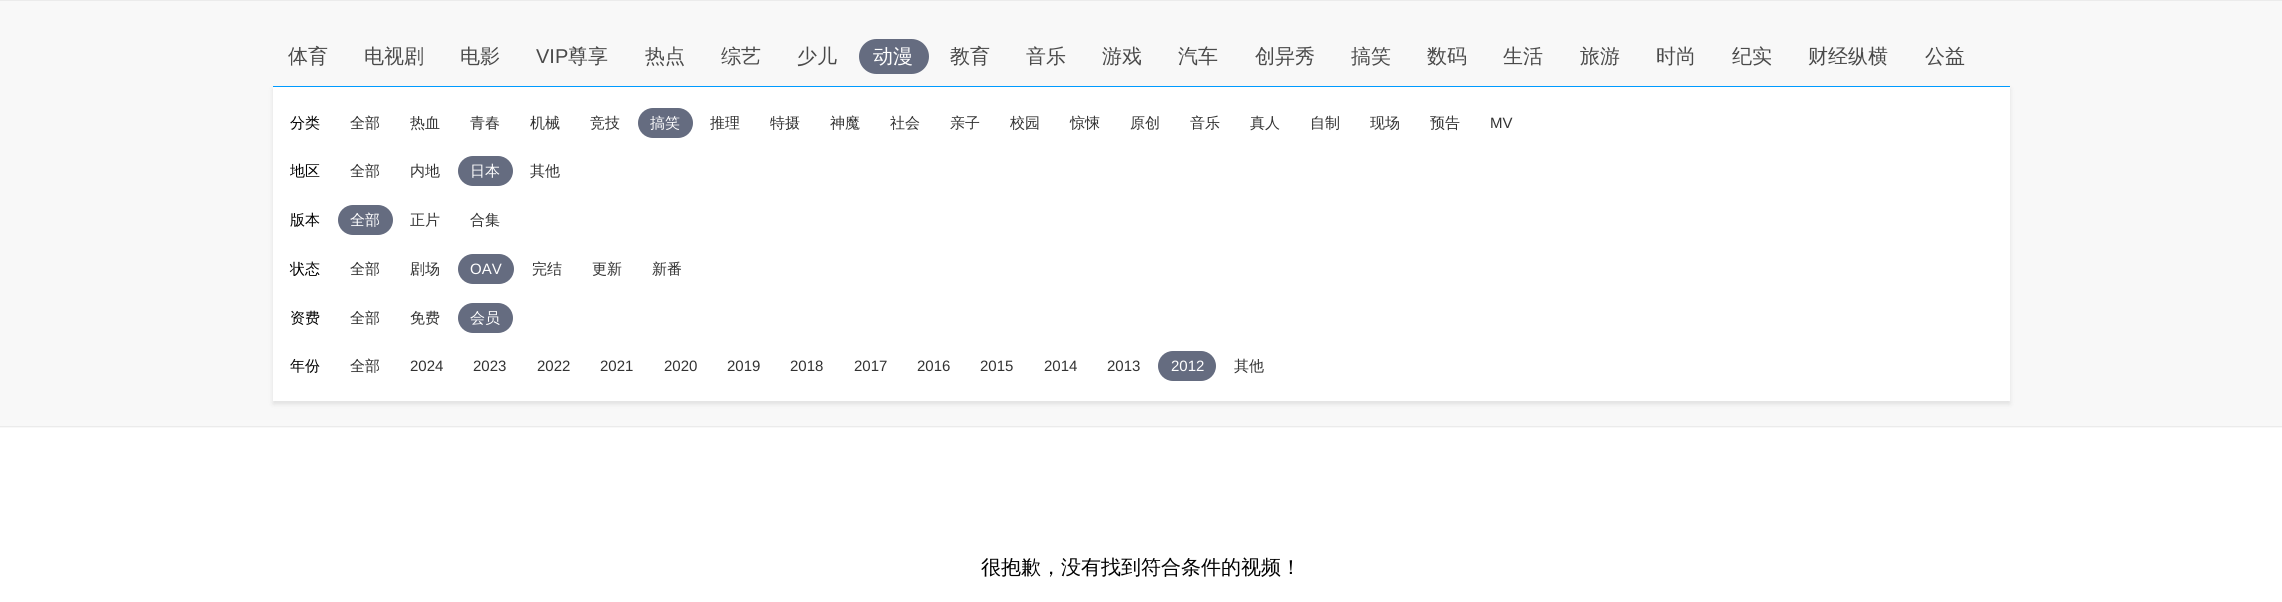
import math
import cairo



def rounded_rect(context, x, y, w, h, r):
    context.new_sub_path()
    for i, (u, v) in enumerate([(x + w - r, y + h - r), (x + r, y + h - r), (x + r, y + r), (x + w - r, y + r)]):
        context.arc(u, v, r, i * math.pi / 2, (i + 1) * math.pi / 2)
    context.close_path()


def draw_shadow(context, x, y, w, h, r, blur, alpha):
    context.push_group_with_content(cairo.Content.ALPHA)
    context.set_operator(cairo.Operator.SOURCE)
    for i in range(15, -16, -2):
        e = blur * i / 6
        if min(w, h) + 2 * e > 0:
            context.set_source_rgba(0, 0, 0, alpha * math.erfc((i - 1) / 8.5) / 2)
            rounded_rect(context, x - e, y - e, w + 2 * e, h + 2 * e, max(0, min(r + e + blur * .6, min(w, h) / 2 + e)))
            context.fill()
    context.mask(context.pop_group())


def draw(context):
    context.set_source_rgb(1, 1, 1)
    context.paint()
    context.set_source_rgb(248 / 255, 248 / 255, 248 / 255)
    context.rectangle(0, 1, 2282, 427)
    context.fill()
    context.set_source_rgb(235 / 255, 235 / 255, 235 / 255)
    context.rectangle(0, 0, 2282, 1)
    context.fill()
    context.rectangle(0, 426, 2282, 1)
    context.fill()
    context.set_source_rgb(101 / 255, 108 / 255, 128 / 255)
    rounded_rect(context, 859, 39, 70, 35, 17.5)
    context.fill()
    context.set_source_rgb(0, 0, 0)
    draw_shadow(context, 273, 89, 1737, 315, 0, 2.5, 0.1)
    context.set_source_rgb(1, 1, 1)
    context.rectangle(273, 87, 1737, 314)
    context.fill()
    context.set_source_rgb(0, 155 / 255, 1)
    context.rectangle(273, 86, 1737, 1)
    context.fill()
    context.set_source_rgb(101 / 255, 108 / 255, 128 / 255)
    rounded_rect(context, 638, 108, 55, 30, 15)
    context.fill()
    rounded_rect(context, 458, 156, 55, 30, 15)
    context.fill()
    rounded_rect(context, 338, 205, 55, 30, 15)
    context.fill()
    rounded_rect(context, 458, 254, 56, 30, 15)
    context.fill()
    rounded_rect(context, 458, 303, 55, 30, 15)
    context.fill()
    rounded_rect(context, 1158, 351, 58, 30, 15)
    context.fill()
    context.select_font_face("WenQuanYi Zen Hei Medium")
    context.set_font_size(20)
    context.set_source_rgb(74 / 255, 74 / 255, 74 / 255)
    context.move_to(288, 63)
    context.show_text("体育")
    context.move_to(364, 63)
    context.show_text("电视剧")
    context.move_to(460, 63)
    context.show_text("电影")
    context.select_font_face("Liberation Sans")
    context.move_to(536, 63)
    context.show_text("VIP")
    context.select_font_face("WenQuanYi Zen Hei Medium")
    context.move_to(568, 63)
    context.show_text("尊享")
    context.move_to(645, 63)
    context.show_text("热点")
    context.move_to(721, 63)
    context.show_text("综艺")
    context.move_to(797, 63)
    context.show_text("少儿")
    context.set_source_rgb(1, 1, 1)
    context.move_to(873, 63)
    context.show_text("动漫")
    context.set_source_rgb(74 / 255, 74 / 255, 74 / 255)
    context.move_to(950, 63)
    context.show_text("教育")
    context.move_to(1026, 63)
    context.show_text("音乐")
    context.move_to(1102, 63)
    context.show_text("游戏")
    context.move_to(1178, 63)
    context.show_text("汽车")
    context.move_to(1255, 63)
    context.show_text("创异秀")
    context.move_to(1351, 63)
    context.show_text("搞笑")
    context.move_to(1427, 63)
    context.show_text("数码")
    context.move_to(1503, 63)
    context.show_text("生活")
    context.move_to(1580, 63)
    context.show_text("旅游")
    context.move_to(1656, 63)
    context.show_text("时尚")
    context.move_to(1732, 63)
    context.show_text("纪实")
    context.move_to(1808, 63)
    context.show_text("财经纵横")
    context.move_to(1925, 63)
    context.show_text("公益")
    context.set_font_size(15)
    context.set_source_rgb(0, 0, 0)
    context.move_to(290, 128)
    context.show_text("分类")
    context.set_source_rgb(50 / 255, 50 / 255, 50 / 255)
    context.move_to(350, 128)
    context.show_text("全部")
    context.move_to(410, 128)
    context.show_text("热血")
    context.move_to(470, 128)
    context.show_text("青春")
    context.move_to(530, 128)
    context.show_text("机械")
    context.move_to(590, 128)
    context.show_text("竞技")
    context.set_source_rgb(1, 1, 1)
    context.move_to(650, 128)
    context.show_text("搞笑")
    context.set_source_rgb(50 / 255, 50 / 255, 50 / 255)
    context.move_to(710, 128)
    context.show_text("推理")
    context.move_to(770, 128)
    context.show_text("特摄")
    context.move_to(830, 128)
    context.show_text("神魔")
    context.move_to(890, 128)
    context.show_text("社会")
    context.move_to(950, 128)
    context.show_text("亲子")
    context.move_to(1010, 128)
    context.show_text("校园")
    context.move_to(1070, 128)
    context.show_text("惊悚")
    context.move_to(1130, 128)
    context.show_text("原创")
    context.move_to(1190, 128)
    context.show_text("音乐")
    context.move_to(1250, 128)
    context.show_text("真人")
    context.move_to(1310, 128)
    context.show_text("自制")
    context.move_to(1370, 128)
    context.show_text("现场")
    context.move_to(1430, 128)
    context.show_text("预告")
    context.select_font_face("Liberation Sans")
    context.move_to(1490, 128)
    context.show_text("MV")
    context.select_font_face("WenQuanYi Zen Hei Medium")
    context.set_source_rgb(0, 0, 0)
    context.move_to(290, 176)
    context.show_text("地区")
    context.set_source_rgb(50 / 255, 50 / 255, 50 / 255)
    context.move_to(350, 176)
    context.show_text("全部")
    context.move_to(410, 176)
    context.show_text("内地")
    context.set_source_rgb(1, 1, 1)
    context.move_to(470, 176)
    context.show_text("日本")
    context.set_source_rgb(50 / 255, 50 / 255, 50 / 255)
    context.move_to(530, 176)
    context.show_text("其他")
    context.set_source_rgb(0, 0, 0)
    context.move_to(290, 225)
    context.show_text("版本")
    context.set_source_rgb(1, 1, 1)
    context.move_to(350, 225)
    context.show_text("全部")
    context.set_source_rgb(50 / 255, 50 / 255, 50 / 255)
    context.move_to(410, 225)
    context.show_text("正片")
    context.move_to(470, 225)
    context.show_text("合集")
    context.set_source_rgb(0, 0, 0)
    context.move_to(290, 274)
    context.show_text("状态")
    context.set_source_rgb(50 / 255, 50 / 255, 50 / 255)
    context.move_to(350, 274)
    context.show_text("全部")
    context.move_to(410, 274)
    context.show_text("剧场")
    context.select_font_face("Liberation Sans")
    context.set_source_rgb(1, 1, 1)
    context.move_to(470, 274)
    context.show_text("OAV")
    context.select_font_face("WenQuanYi Zen Hei Medium")
    context.set_source_rgb(50 / 255, 50 / 255, 50 / 255)
    context.move_to(532, 274)
    context.show_text("完结")
    context.move_to(592, 274)
    context.show_text("更新")
    context.move_to(652, 274)
    context.show_text("新番")
    context.set_source_rgb(0, 0, 0)
    context.move_to(290, 323)
    context.show_text("资费")
    context.set_source_rgb(50 / 255, 50 / 255, 50 / 255)
    context.move_to(350, 323)
    context.show_text("全部")
    context.move_to(410, 323)
    context.show_text("免费")
    context.set_source_rgb(1, 1, 1)
    context.move_to(470, 323)
    context.show_text("会员")
    context.set_source_rgb(0, 0, 0)
    context.move_to(290, 371)
    context.show_text("年份")
    context.set_source_rgb(50 / 255, 50 / 255, 50 / 255)
    context.move_to(350, 371)
    context.show_text("全部")
    context.select_font_face("Liberation Sans")
    context.move_to(410, 371)
    context.show_text("2024")
    context.move_to(473, 371)
    context.show_text("2023")
    context.move_to(537, 371)
    context.show_text("2022")
    context.move_to(600, 371)
    context.show_text("2021")
    context.move_to(664, 371)
    context.show_text("2020")
    context.move_to(727, 371)
    context.show_text("2019")
    context.move_to(790, 371)
    context.show_text("2018")
    context.move_to(854, 371)
    context.show_text("2017")
    context.move_to(917, 371)
    context.show_text("2016")
    context.move_to(980, 371)
    context.show_text("2015")
    context.move_to(1044, 371)
    context.show_text("2014")
    context.move_to(1107, 371)
    context.show_text("2013")
    context.set_source_rgb(1, 1, 1)
    context.move_to(1171, 371)
    context.show_text("2012")
    context.select_font_face("WenQuanYi Zen Hei Medium")
    context.set_source_rgb(50 / 255, 50 / 255, 50 / 255)
    context.move_to(1234, 371)
    context.show_text("其他")
    context.set_font_size(20)
    context.set_source_rgb(0, 0, 0)
    context.move_to(981, 574)
    context.show_text("很抱歉，没有找到符合条件的视频！")


surface = cairo.ImageSurface(cairo.Format.RGB24, 2282, 602)
context = cairo.Context(surface)
options = cairo.FontOptions()
options.set_hint_metrics(cairo.HintMetrics.OFF)
options.set_hint_style(cairo.HintStyle.NONE)
context.set_font_options(options)
context.set_miter_limit(4)
draw(context)
surface.write_to_png("out.png")
